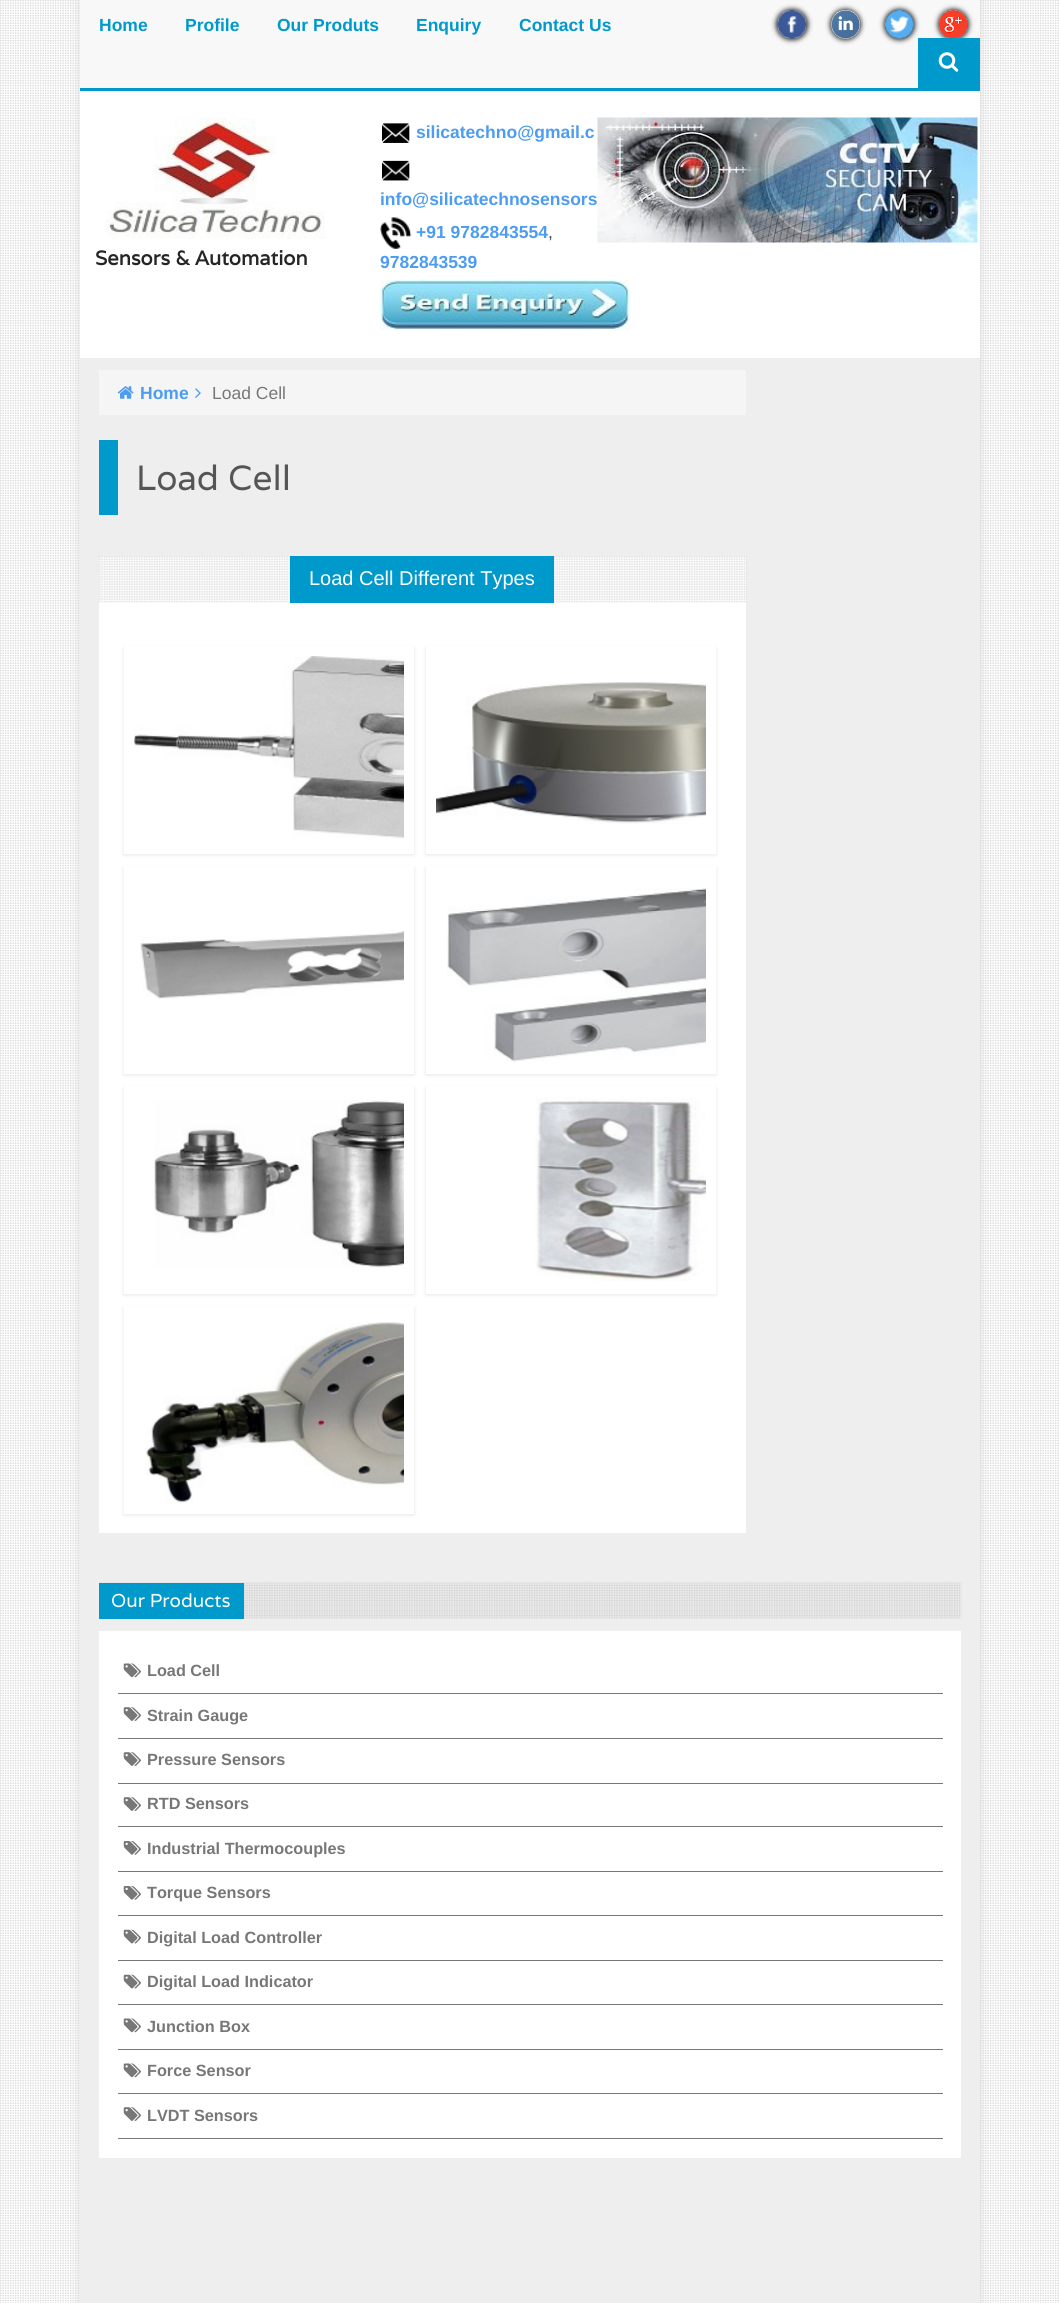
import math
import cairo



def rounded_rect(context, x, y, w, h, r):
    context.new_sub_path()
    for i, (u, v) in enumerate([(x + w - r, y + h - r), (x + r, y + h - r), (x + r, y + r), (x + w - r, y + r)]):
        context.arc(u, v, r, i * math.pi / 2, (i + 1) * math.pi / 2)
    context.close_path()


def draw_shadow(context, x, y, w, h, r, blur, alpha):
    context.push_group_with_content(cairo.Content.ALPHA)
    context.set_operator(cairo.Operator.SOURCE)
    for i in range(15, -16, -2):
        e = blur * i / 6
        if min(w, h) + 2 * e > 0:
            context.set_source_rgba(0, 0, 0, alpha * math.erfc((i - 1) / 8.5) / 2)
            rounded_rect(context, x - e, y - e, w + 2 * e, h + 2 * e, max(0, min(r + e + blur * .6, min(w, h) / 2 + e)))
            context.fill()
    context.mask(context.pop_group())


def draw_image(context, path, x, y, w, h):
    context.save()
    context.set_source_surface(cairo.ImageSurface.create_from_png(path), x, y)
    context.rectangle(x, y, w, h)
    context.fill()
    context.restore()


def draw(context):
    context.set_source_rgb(1, 1, 1)
    context.paint()
    draw_image(context, "images/1.png", 0, 0, 1059, 2303)
    context.set_source_rgb(221 / 255, 221 / 255, 221 / 255)
    draw_shadow(context, 80, 0, 900, 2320, 0, 5.5, 1)
    context.set_source_rgb(1, 1, 1)
    context.rectangle(80, 91, 900, 267)
    context.fill()
    context.set_source_rgb(248 / 255, 248 / 255, 248 / 255)
    context.rectangle(80, 0, 900, 88)
    context.fill()
    context.set_source_rgb(0, 153 / 255, 204 / 255)
    context.rectangle(80, 88, 900, 3)
    context.fill()
    context.set_source_rgb(0, 0, 0)
    draw_shadow(context, 776, 9, 32, 31, 15.5, 2.5, 0.8)
    draw_image(context, "images/2.png", 777, 10, 30, 29)
    draw_shadow(context, 830, 9, 31, 31, 15.5, 2.5, 0.8)
    draw_image(context, "images/3.png", 831, 10, 29, 29)
    draw_shadow(context, 884, 9, 31, 31, 15.5, 2.5, 0.8)
    draw_image(context, "images/4.png", 885, 10, 29, 29)
    draw_shadow(context, 938, 9, 31, 31, 15.5, 2.5, 0.8)
    draw_image(context, "images/5.png", 938, 10, 30, 28)
    context.set_source_rgb(0, 153 / 255, 204 / 255)
    context.rectangle(918, 38, 62, 50)
    context.fill()
    draw_image(context, "images/6.png", 938, 52, 21, 20)
    draw_image(context, "images/7.png", 105, 117, 220, 122)
    draw_image(context, "images/8.png", 382, 123, 28, 20)
    draw_image(context, "images/9.png", 382, 160, 28, 21)
    draw_image(context, "images/10.png", 380, 217, 32, 32)
    draw_image(context, "images/11.png", 380, 280, 250, 50)
    draw_image(context, "images/12.png", 597, 117, 381, 126)
    context.set_source_rgb(238 / 255, 238 / 255, 238 / 255)
    context.rectangle(80, 358, 899, 1945)
    context.fill()
    context.set_source_rgb(245 / 255, 245 / 255, 245 / 255)
    context.rectangle(99, 370, 647, 45)
    context.fill()
    draw_image(context, "images/13.png", 117, 386, 17, 13)
    draw_image(context, "images/14.png", 195, 388, 6, 10)
    context.set_source_rgb(0, 153 / 255, 204 / 255)
    context.rectangle(99, 440, 19, 75)
    context.fill()
    context.set_source_rgb(1, 1, 1)
    context.rectangle(99, 556, 647, 977)
    context.fill()
    draw_image(context, "images/15.png", 99, 556, 648, 47)
    context.set_source_rgb(0, 153 / 255, 204 / 255)
    context.rectangle(290, 556, 264, 47)
    context.fill()
    context.set_source_rgb(0, 0, 0)
    draw_shadow(context, 124, 648, 290, 207, 0, 2, 0.1)
    context.set_source_rgb(1, 1, 1)
    context.rectangle(124, 646, 290, 208)
    context.fill()
    draw_image(context, "images/16.png", 134, 656, 270, 183)
    context.set_source_rgb(0, 0, 0)
    draw_shadow(context, 426, 648, 290, 207, 0, 2, 0.1)
    context.set_source_rgb(1, 1, 1)
    context.rectangle(426, 646, 290, 208)
    context.fill()
    draw_image(context, "images/17.png", 436, 682, 270, 142)
    context.set_source_rgb(0, 0, 0)
    draw_shadow(context, 124, 868, 290, 207, 0, 2, 0.1)
    context.set_source_rgb(1, 1, 1)
    context.rectangle(124, 866, 290, 208)
    context.fill()
    draw_image(context, "images/18.png", 140, 930, 264, 69)
    context.set_source_rgb(0, 0, 0)
    draw_shadow(context, 426, 868, 290, 207, 0, 2, 0.1)
    context.set_source_rgb(1, 1, 1)
    context.rectangle(426, 866, 290, 208)
    context.fill()
    draw_image(context, "images/19.png", 447, 888, 259, 174)
    context.set_source_rgb(0, 0, 0)
    draw_shadow(context, 124, 1088, 290, 207, 0, 2, 0.1)
    context.set_source_rgb(1, 1, 1)
    context.rectangle(124, 1086, 290, 208)
    context.fill()
    draw_image(context, "images/20.png", 154, 1100, 250, 168)
    context.set_source_rgb(0, 0, 0)
    draw_shadow(context, 426, 1088, 290, 207, 0, 2, 0.1)
    context.set_source_rgb(1, 1, 1)
    context.rectangle(426, 1086, 290, 208)
    context.fill()
    draw_image(context, "images/21.png", 536, 1097, 170, 185)
    context.set_source_rgb(0, 0, 0)
    draw_shadow(context, 124, 1308, 290, 207, 0, 2, 0.1)
    context.set_source_rgb(1, 1, 1)
    context.rectangle(124, 1306, 290, 208)
    context.fill()
    draw_image(context, "images/22.png", 145, 1322, 259, 181)
    draw_image(context, "images/23.png", 99, 1582, 863, 37)
    context.set_source_rgb(0, 153 / 255, 204 / 255)
    context.rectangle(99, 1583, 145, 36)
    context.fill()
    context.set_source_rgb(1, 1, 1)
    context.rectangle(99, 1631, 862, 527)
    context.fill()
    context.set_source_rgb(119 / 255, 119 / 255, 119 / 255)
    context.rectangle(118, 1693, 825, 1)
    context.fill()
    draw_image(context, "images/24.png", 123, 1663, 18, 15)
    context.rectangle(118, 1738, 825, 1)
    context.fill()
    draw_image(context, "images/25.png", 123, 1707, 18, 14)
    context.rectangle(118, 1783, 825, 1)
    context.fill()
    draw_image(context, "images/25.png", 123, 1752, 18, 14)
    context.rectangle(118, 1826, 825, 1)
    context.fill()
    draw_image(context, "images/25.png", 123, 1797, 18, 14)
    context.rectangle(118, 1871, 825, 1)
    context.fill()
    draw_image(context, "images/26.png", 123, 1841, 18, 14)
    context.rectangle(118, 1915, 825, 1)
    context.fill()
    draw_image(context, "images/26.png", 123, 1886, 18, 14)
    context.rectangle(118, 1960, 825, 1)
    context.fill()
    draw_image(context, "images/27.png", 123, 1929, 18, 15)
    context.rectangle(118, 2004, 825, 1)
    context.fill()
    draw_image(context, "images/27.png", 123, 1974, 18, 15)
    context.rectangle(118, 2049, 825, 1)
    context.fill()
    draw_image(context, "images/24.png", 123, 2018, 18, 15)
    context.rectangle(118, 2093, 825, 1)
    context.fill()
    draw_image(context, "images/24.png", 123, 2063, 18, 15)
    context.rectangle(118, 2138, 825, 1)
    context.fill()
    draw_image(context, "images/25.png", 123, 2107, 18, 14)
    context.select_font_face("Liberation Sans", cairo.FontSlant.NORMAL, cairo.FontWeight.BOLD)
    context.set_font_size(17.5)
    context.set_source_rgb(0, 153 / 255, 204 / 255)
    context.move_to(99, 31)
    context.show_text("Home")
    context.move_to(185, 31)
    context.show_text("Profile")
    context.move_to(277, 31)
    context.show_text("Our Produts")
    context.move_to(416, 31)
    context.show_text("Enquiry")
    context.move_to(519, 31)
    context.show_text("Contact Us")
    context.select_font_face("Varela", cairo.FontSlant.NORMAL, cairo.FontWeight.BOLD)
    context.set_font_size(20)
    context.set_source_rgb(37 / 255, 37 / 255, 37 / 255)
    context.move_to(95, 265)
    context.show_text("Sensors & Automation")
    context.select_font_face("Liberation Sans", cairo.FontSlant.NORMAL, cairo.FontWeight.BOLD)
    context.set_font_size(17.5)
    context.set_source_rgb(76 / 255, 156 / 255, 241 / 255)
    context.move_to(416, 138)
    context.show_text("silicatechno@gmail.c")
    context.move_to(380, 205)
    context.show_text("info@silicatechnosensors")
    context.move_to(416, 238)
    context.show_text("+91 9782843554")
    context.select_font_face("Liberation Sans")
    context.set_source_rgb(68 / 255, 68 / 255, 68 / 255)
    context.move_to(548, 238)
    context.show_text(",")
    context.select_font_face("Liberation Sans", cairo.FontSlant.NORMAL, cairo.FontWeight.BOLD)
    context.set_source_rgb(76 / 255, 156 / 255, 241 / 255)
    context.move_to(380, 268)
    context.show_text("9782843539")
    context.move_to(140, 399)
    context.show_text("Home")
    context.select_font_face("Liberation Sans")
    context.set_source_rgb(119 / 255, 119 / 255, 119 / 255)
    context.move_to(212, 399)
    context.show_text("Load Cell")
    context.select_font_face("Varela")
    context.set_font_size(35)
    context.set_source_rgb(85 / 255, 85 / 255, 85 / 255)
    context.move_to(136, 490)
    context.show_text("Load Cell")
    context.select_font_face("Liberation Sans")
    context.set_font_size(20)
    context.set_source_rgb(1, 1, 1)
    context.move_to(309, 585)
    context.show_text("Load Cell Different Types")
    context.select_font_face("Varela")
    context.set_font_size(18.75)
    context.move_to(111, 1607)
    context.show_text("Our Products")
    context.select_font_face("Liberation Sans", cairo.FontSlant.NORMAL, cairo.FontWeight.BOLD)
    context.set_font_size(16.25)
    context.set_source_rgb(119 / 255, 119 / 255, 119 / 255)
    context.move_to(147, 1676)
    context.show_text("Load Cell")
    context.move_to(147, 1721)
    context.show_text("Strain Gauge")
    context.move_to(147, 1765)
    context.show_text("Pressure Sensors")
    context.move_to(147, 1809)
    context.show_text("RTD Sensors")
    context.move_to(147, 1854)
    context.show_text("Industrial Thermocouples")
    context.move_to(147, 1898)
    context.show_text("Torque Sensors")
    context.move_to(147, 1943)
    context.show_text("Digital Load Controller")
    context.move_to(147, 1987)
    context.show_text("Digital Load Indicator")
    context.move_to(147, 2032)
    context.show_text("Junction Box")
    context.move_to(147, 2076)
    context.show_text("Force Sensor")
    context.move_to(147, 2121)
    context.show_text("LVDT Sensors")


surface = cairo.ImageSurface(cairo.Format.RGB24, 1059, 2303)
context = cairo.Context(surface)
options = cairo.FontOptions()
options.set_hint_metrics(cairo.HintMetrics.OFF)
options.set_hint_style(cairo.HintStyle.NONE)
context.set_font_options(options)
context.set_miter_limit(4)
draw(context)
surface.write_to_png("out.png")
